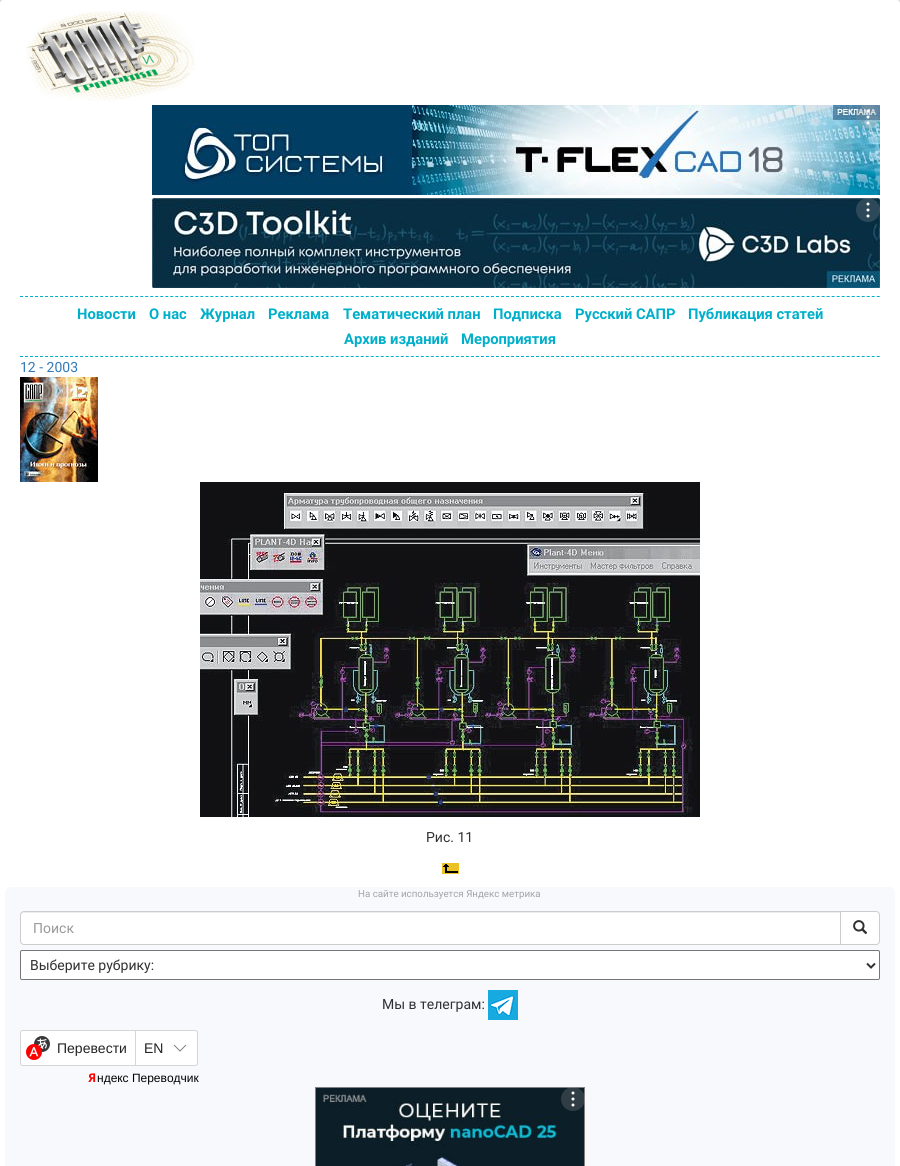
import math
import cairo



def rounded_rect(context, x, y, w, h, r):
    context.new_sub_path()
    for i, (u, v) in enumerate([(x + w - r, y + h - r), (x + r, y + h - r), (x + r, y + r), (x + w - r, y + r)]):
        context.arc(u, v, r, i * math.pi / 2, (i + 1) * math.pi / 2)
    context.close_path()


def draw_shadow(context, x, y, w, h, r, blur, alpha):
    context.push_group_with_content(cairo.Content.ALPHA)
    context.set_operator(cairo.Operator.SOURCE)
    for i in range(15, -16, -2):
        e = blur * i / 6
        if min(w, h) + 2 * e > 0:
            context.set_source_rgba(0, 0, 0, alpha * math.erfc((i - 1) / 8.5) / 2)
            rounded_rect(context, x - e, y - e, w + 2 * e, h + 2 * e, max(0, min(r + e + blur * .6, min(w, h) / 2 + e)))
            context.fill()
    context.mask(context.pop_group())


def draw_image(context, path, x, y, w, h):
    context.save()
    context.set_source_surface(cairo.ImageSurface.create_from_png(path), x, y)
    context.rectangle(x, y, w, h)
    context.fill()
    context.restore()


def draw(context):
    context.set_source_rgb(1, 1, 1)
    context.paint()
    draw_image(context, "images/1.png", 0, 0, 900, 3)
    context.set_source_rgb(125 / 255, 125 / 255, 125 / 255)
    draw_shadow(context, 0, 0, 900, 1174, 3, 1.5, 1)
    context.set_source_rgb(1, 1, 1)
    rounded_rect(context, 0, 0, 900, 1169, 3)
    context.fill()
    draw_image(context, "images/2.png", 26, 11, 169, 90)
    draw_image(context, "images/3.png", 152, 105, 728, 90)
    context.set_source_rgba(158 / 255, 158 / 255, 158 / 255, 0.25)
    context.arc(868, 117, 12, 0, 2 * math.pi)
    context.fill()
    context.set_source_rgb(1, 1, 1)
    context.arc(868, 111, 1.5, 0, 2 * math.pi)
    context.fill()
    context.arc(868, 117, 1.5, 0, 2 * math.pi)
    context.fill()
    context.arc(868, 123, 1.5, 0, 2 * math.pi)
    context.fill()
    draw_image(context, "images/4.png", 152, 198, 728, 90)
    context.set_source_rgba(158 / 255, 158 / 255, 158 / 255, 0.25)
    context.arc(868, 210, 12, 0, 2 * math.pi)
    context.fill()
    context.set_source_rgb(1, 1, 1)
    context.arc(868, 204, 1.5, 0, 2 * math.pi)
    context.fill()
    context.arc(868, 210, 1.5, 0, 2 * math.pi)
    context.fill()
    context.arc(868, 216, 1.5, 0, 2 * math.pi)
    context.fill()
    context.new_path()
    context.move_to(20, 296.5)
    context.line_to(880, 296.5)
    context.set_source_rgb(0, 175 / 255, 201 / 255)
    context.set_line_width(1)
    context.set_dash([3, 2.01])
    context.stroke()
    context.new_path()
    context.move_to(20, 356.5)
    context.line_to(880, 356.5)
    context.stroke()
    draw_image(context, "images/5.png", 20, 377, 78, 105)
    draw_image(context, "images/6.png", 200, 482, 500, 335)
    draw_image(context, "images/7.png", 442, 863, 17, 11)
    context.set_source_rgb(248 / 255, 249 / 255, 253 / 255)
    rounded_rect(context, 5, 887, 890, 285, 6)
    context.fill()
    context.set_source_rgb(1, 1, 1)
    context.new_path()
    context.move_to(24, 911)
    context.line_to(841, 911)
    context.line_to(841, 945)
    context.line_to(24, 945)
    context.curve_to(22, 945, 20, 943, 20, 941)
    context.line_to(20, 915)
    context.curve_to(20, 913, 22, 911, 24, 911)
    context.close_path()
    context.fill()
    context.set_source_rgb(236 / 255, 236 / 255, 236 / 255)
    context.new_path()
    context.move_to(24, 913)
    context.line_to(840, 913)
    context.line_to(840, 912)
    context.line_to(24, 912)
    context.curve_to(22, 912, 21, 914, 21, 916)
    context.curve_to(21, 914, 22, 913, 24, 913)
    context.close_path()
    context.fill()
    context.new_path()
    context.move_to(24, 911.5)
    context.line_to(840.5, 911.5)
    context.line_to(840.5, 944.5)
    context.line_to(24, 944.5)
    context.curve_to(22, 944.5, 20.5, 943, 20.5, 941)
    context.line_to(20.5, 915)
    context.curve_to(20.5, 913, 22, 911.5, 24, 911.5)
    context.close_path()
    context.set_source_rgb(204 / 255, 204 / 255, 204 / 255)
    context.set_dash([])
    context.stroke()
    context.set_source_rgb(1, 1, 1)
    context.new_path()
    context.move_to(840.5, 911.5)
    context.line_to(876, 911.5)
    context.curve_to(878, 911.5, 879.5, 913, 879.5, 915)
    context.line_to(879.5, 941)
    context.curve_to(879.5, 943, 878, 944.5, 876, 944.5)
    context.line_to(840.5, 944.5)
    context.close_path()
    context.fill_preserve()
    context.set_source_rgb(204 / 255, 204 / 255, 204 / 255)
    context.stroke()
    draw_image(context, "images/8.png", 853, 920, 15, 14)
    context.set_source_rgb(1, 1, 1)
    rounded_rect(context, 20.5, 950.5, 859, 29, 1.5)
    context.fill_preserve()
    context.set_source_rgb(118 / 255, 118 / 255, 118 / 255)
    context.stroke()
    context.new_path()
    context.move_to(867, 963.5)
    context.line_to(871, 967.5)
    context.line_to(875, 963.5)
    context.set_source_rgb(49 / 255, 49 / 255, 49 / 255)
    context.set_line_width(2)
    context.stroke()
    draw_image(context, "images/9.png", 488, 990, 30, 30)
    context.set_source_rgb(1, 1, 1)
    context.new_path()
    context.move_to(23, 1030.5)
    context.line_to(135.5, 1030.5)
    context.line_to(135.5, 1065.5)
    context.line_to(23, 1065.5)
    context.curve_to(21.5, 1065.5, 20.5, 1064.5, 20.5, 1063)
    context.line_to(20.5, 1033)
    context.curve_to(20.5, 1031.5, 21.5, 1030.5, 23, 1030.5)
    context.close_path()
    context.fill_preserve()
    context.set_source_rgb(213 / 255, 213 / 255, 213 / 255)
    context.set_line_width(1)
    context.stroke()
    draw_image(context, "images/10.png", 26, 1036, 24, 24)
    context.set_source_rgb(1, 1, 1)
    context.new_path()
    context.move_to(135.5, 1030.5)
    context.line_to(195, 1030.5)
    context.curve_to(196.5, 1030.5, 197.5, 1031.5, 197.5, 1033)
    context.line_to(197.5, 1063)
    context.curve_to(197.5, 1064.5, 196.5, 1065.5, 195, 1065.5)
    context.line_to(135.5, 1065.5)
    context.close_path()
    context.fill_preserve()
    context.set_source_rgb(213 / 255, 213 / 255, 213 / 255)
    context.stroke()
    draw_image(context, "images/11.png", 173, 1044, 14, 8)
    context.rectangle(315.5, 1087.5, 269, 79)
    context.set_source_rgb(128 / 255, 128 / 255, 128 / 255)
    context.stroke()
    draw_image(context, "images/12.png", 316, 1088, 268, 78)
    context.set_source_rgba(158 / 255, 158 / 255, 158 / 255, 0.25)
    context.arc(573, 1099, 12, 0, 2 * math.pi)
    context.fill()
    context.set_source_rgb(1, 1, 1)
    context.arc(573, 1093, 1.5, 0, 2 * math.pi)
    context.fill()
    context.arc(573, 1099, 1.5, 0, 2 * math.pi)
    context.fill()
    context.arc(573, 1105, 1.5, 0, 2 * math.pi)
    context.fill()
    context.select_font_face("Roboto", cairo.FontSlant.NORMAL, cairo.FontWeight.BOLD)
    context.set_font_size(14.75)
    context.set_source_rgb(0, 175 / 255, 201 / 255)
    context.move_to(77, 319)
    context.show_text("Новости")
    context.move_to(149, 319)
    context.show_text("О нас")
    context.move_to(200, 319)
    context.show_text("Журнал")
    context.move_to(268, 319)
    context.show_text("Реклама")
    context.move_to(343, 319)
    context.show_text("Тематический план")
    context.move_to(493, 319)
    context.show_text("Подписка")
    context.move_to(575, 319)
    context.show_text("Русский САПР")
    context.move_to(688, 319)
    context.show_text("Публикация статей")
    context.move_to(344, 344)
    context.show_text("Архив изданий")
    context.move_to(461, 344)
    context.show_text("Мероприятия")
    context.select_font_face("Roboto")
    context.set_font_size(14)
    context.set_source_rgb(51 / 255, 122 / 255, 183 / 255)
    context.move_to(20, 372)
    context.show_text("12 - 2003")
    context.set_source_rgb(49 / 255, 49 / 255, 49 / 255)
    context.move_to(426, 842)
    context.show_text("Рис. 11")
    context.set_font_size(9.75)
    context.set_source_rgb(164 / 255, 164 / 255, 166 / 255)
    context.move_to(358, 897)
    context.show_text("На сайте используется Яндекс метрика")
    context.set_font_size(14)
    context.set_source_rgb(153 / 255, 153 / 255, 153 / 255)
    context.move_to(33, 933)
    context.show_text("Поиск")
    context.set_source_rgb(49 / 255, 49 / 255, 49 / 255)
    context.move_to(30, 970)
    context.show_text("Выберите рубрику:")
    context.move_to(382, 1009)
    context.show_text("Мы в телеграм:")
    context.select_font_face("Liberation Sans")
    context.set_source_rgb(34 / 255, 34 / 255, 34 / 255)
    context.move_to(57, 1053)
    context.show_text("Перевести")
    context.move_to(144, 1053)
    context.show_text("EN")
    context.select_font_face("Noto Sans", cairo.FontSlant.NORMAL, cairo.FontWeight.BOLD)
    context.set_font_size(12)
    context.set_source_rgb(1, 0, 0)
    context.move_to(88, 1082)
    context.show_text("Я")
    context.select_font_face("Liberation Sans")
    context.set_source_rgb(0, 0, 0)
    context.move_to(97, 1082)
    context.show_text("ндекс Переводчик")


surface = cairo.ImageSurface(cairo.Format.RGB24, 900, 1166)
context = cairo.Context(surface)
options = cairo.FontOptions()
options.set_hint_metrics(cairo.HintMetrics.OFF)
options.set_hint_style(cairo.HintStyle.NONE)
context.set_font_options(options)
context.set_miter_limit(4)
draw(context)
surface.write_to_png("out.png")
